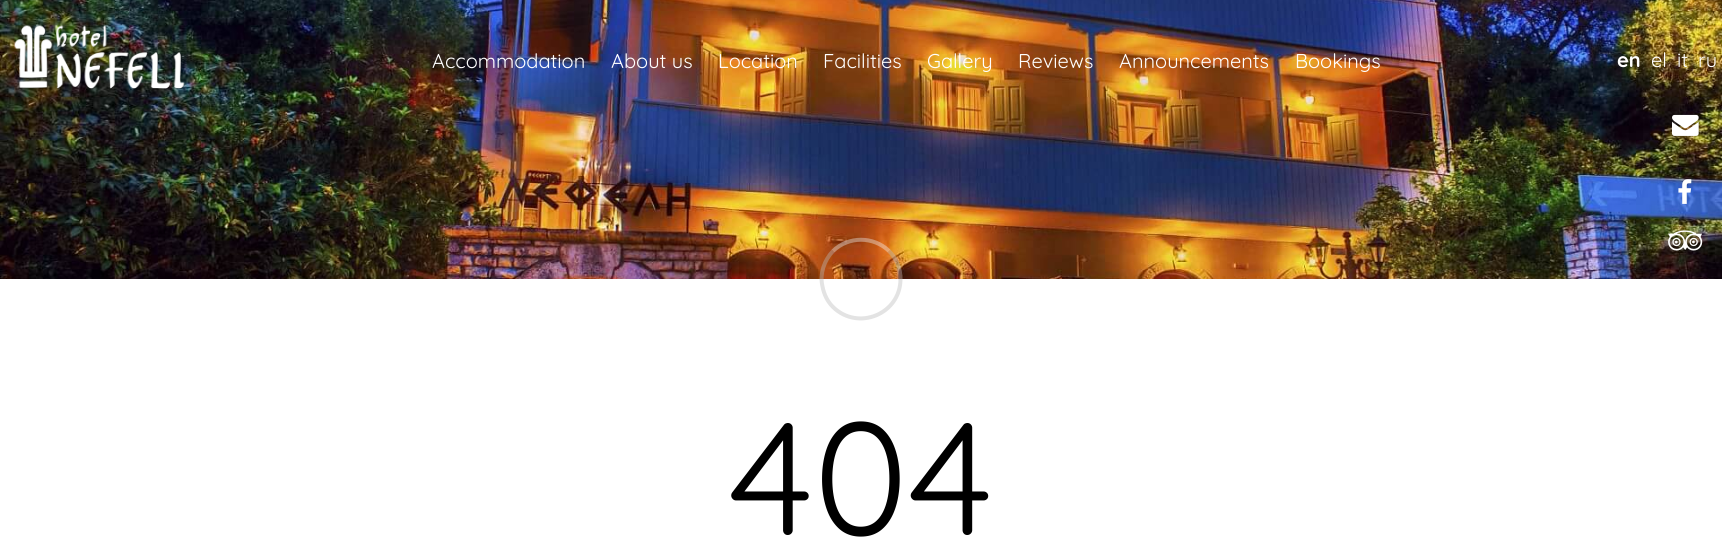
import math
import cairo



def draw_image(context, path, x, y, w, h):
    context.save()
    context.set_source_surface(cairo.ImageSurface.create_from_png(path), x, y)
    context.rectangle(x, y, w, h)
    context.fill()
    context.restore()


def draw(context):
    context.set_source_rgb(1, 1, 1)
    context.paint()
    draw_image(context, "images/5.png", 0, 0, 1722, 279)
    draw_image(context, "images/1.png", 14, 25, 171, 64)
    draw_image(context, "images/2.png", 1672, 114, 27, 22)
    draw_image(context, "images/3.png", 1678, 179, 14, 25)
    draw_image(context, "images/4.png", 1668, 230, 35, 21)
    context.new_path()
    context.move_to(833, 251)
    context.curve_to(848.5, 236, 873.5, 236, 889, 251)
    context.set_source_rgba(238 / 255, 238 / 255, 238 / 255, 0.41)
    context.set_line_width(4)
    context.stroke()
    context.new_path()
    context.move_to(889, 251)
    context.curve_to(896.5, 258.5, 900.5, 268.5, 900.5, 279)
    context.curve_to(900.5, 314, 858, 331.5, 833, 307)
    context.curve_to(827.5, 301.5, 824, 294.5, 822.5, 286.5)
    context.curve_to(819.5, 274, 824, 260.5, 833, 251)
    context.set_source_rgba(187 / 255, 187 / 255, 187 / 255, 0.41)
    context.stroke()
    context.select_font_face("Quicksand")
    context.set_font_size(20)
    context.set_source_rgb(1, 1, 1)
    context.move_to(432, 68)
    context.show_text("Accommodation")
    context.move_to(611, 68)
    context.show_text("About us")
    context.move_to(718, 68)
    context.show_text("Location")
    context.move_to(823, 68)
    context.show_text("Facilities")
    context.move_to(927, 68)
    context.show_text("Gallery")
    context.move_to(1018, 68)
    context.show_text("Reviews")
    context.move_to(1119, 68)
    context.show_text("Announcements")
    context.move_to(1295, 68)
    context.show_text("Bookings")
    context.select_font_face("Quicksand", cairo.FontSlant.NORMAL, cairo.FontWeight.BOLD)
    context.move_to(1617, 67)
    context.show_text("en")
    context.select_font_face("Quicksand")
    context.move_to(1651, 67)
    context.show_text("el")
    context.move_to(1677, 67)
    context.show_text("it")
    context.move_to(1698, 67)
    context.show_text("ru")
    context.set_font_size(160)
    context.set_source_rgb(0, 0, 0)
    context.move_to(729, 535)
    context.show_text("404")


surface = cairo.ImageSurface(cairo.Format.RGB24, 1722, 557)
context = cairo.Context(surface)
options = cairo.FontOptions()
options.set_hint_metrics(cairo.HintMetrics.OFF)
options.set_hint_style(cairo.HintStyle.NONE)
context.set_font_options(options)
context.set_miter_limit(4)
draw(context)
surface.write_to_png("out.png")
